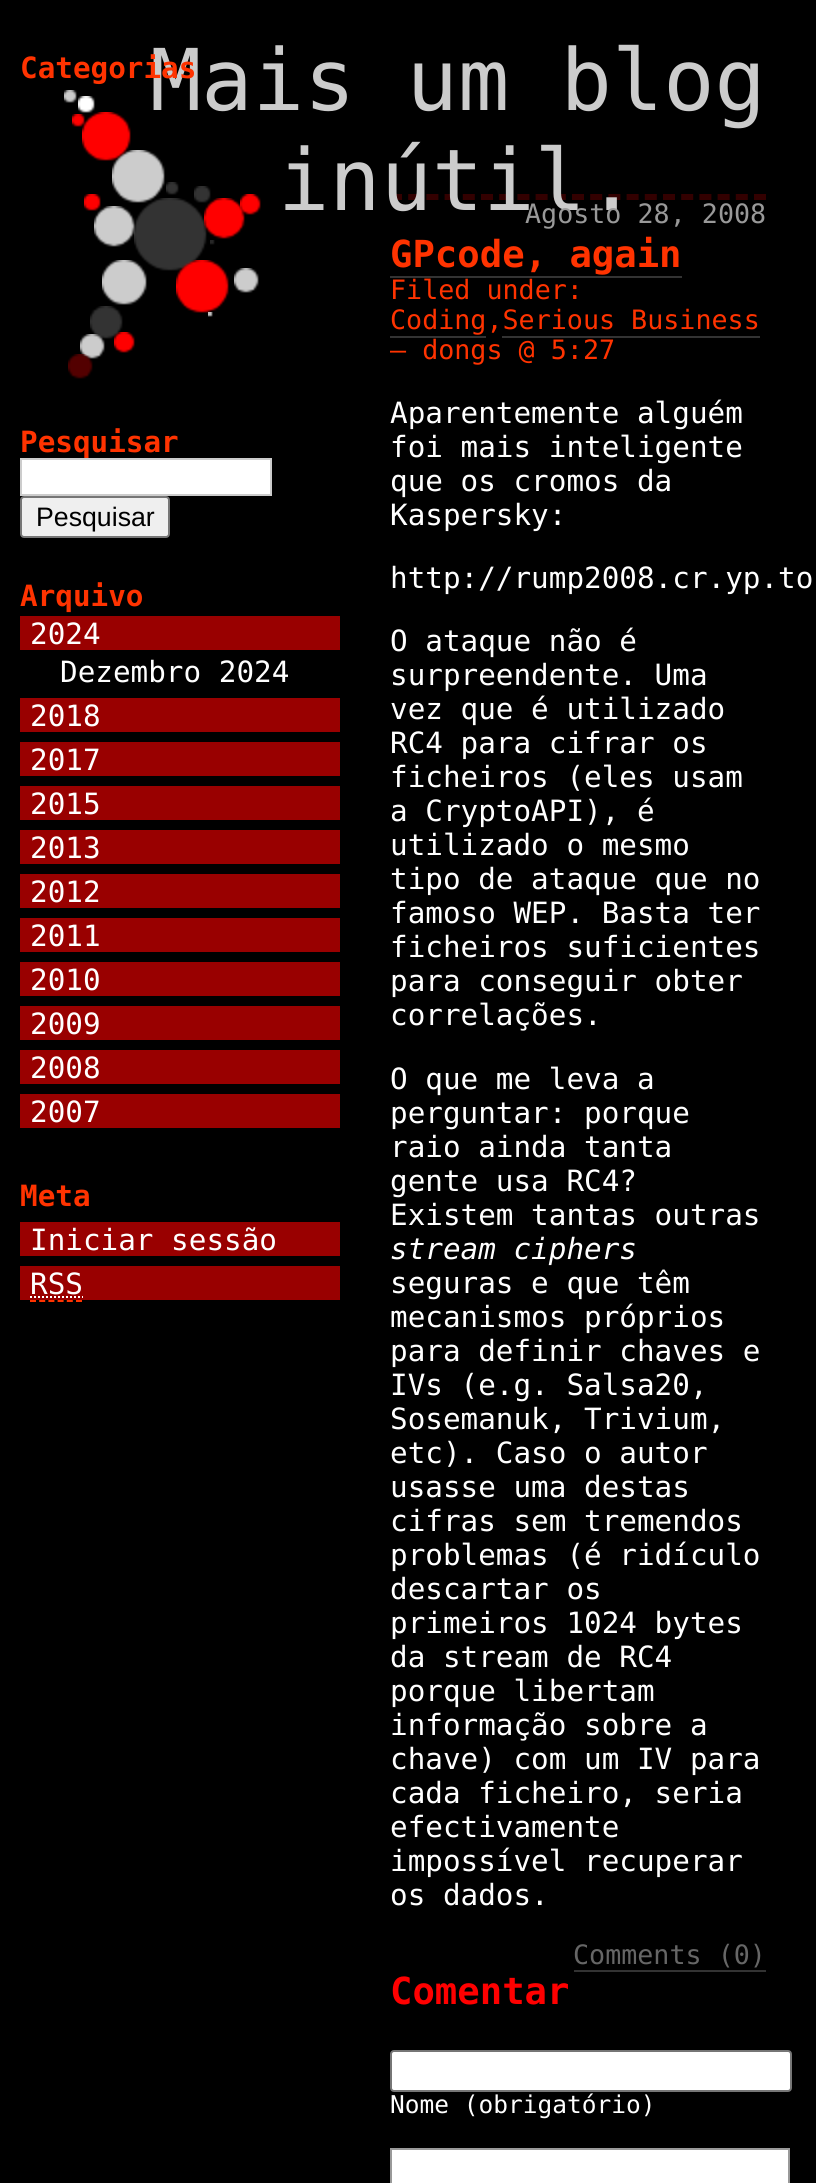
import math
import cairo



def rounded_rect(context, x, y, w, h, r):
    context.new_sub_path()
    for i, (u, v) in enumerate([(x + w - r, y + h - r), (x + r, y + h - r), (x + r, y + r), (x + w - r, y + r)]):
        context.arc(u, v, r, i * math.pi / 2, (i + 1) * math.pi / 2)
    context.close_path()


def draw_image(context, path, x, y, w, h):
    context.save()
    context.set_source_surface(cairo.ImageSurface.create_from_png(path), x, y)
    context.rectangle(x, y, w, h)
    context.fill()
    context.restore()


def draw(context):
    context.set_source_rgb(0, 0, 0)
    context.paint()
    draw_image(context, "images/1.png", 64, 90, 13, 13)
    draw_image(context, "images/11.png", 134, 198, 73, 73)
    draw_image(context, "images/6.png", 112, 150, 53, 53)
    draw_image(context, "images/4.png", 82, 112, 49, 49)
    draw_image(context, "images/2.png", 78, 96, 17, 17)
    draw_image(context, "images/3.png", 72, 114, 13, 13)
    draw_image(context, "images/10.png", 94, 206, 41, 41)
    draw_image(context, "images/5.png", 84, 194, 17, 17)
    draw_image(context, "images/7.png", 166, 182, 13, 13)
    draw_image(context, "images/12.png", 204, 198, 41, 41)
    draw_image(context, "images/8.png", 194, 186, 17, 17)
    draw_image(context, "images/9.png", 240, 194, 21, 21)
    draw_image(context, "images/13.png", 210, 240, 5, 5)
    draw_image(context, "images/14.png", 102, 260, 45, 45)
    draw_image(context, "images/15.png", 176, 260, 53, 53)
    draw_image(context, "images/16.png", 234, 268, 25, 25)
    draw_image(context, "images/17.png", 90, 306, 33, 33)
    draw_image(context, "images/18.png", 208, 312, 5, 5)
    draw_image(context, "images/19.png", 80, 334, 25, 25)
    draw_image(context, "images/20.png", 114, 332, 21, 21)
    draw_image(context, "images/21.png", 68, 354, 25, 25)
    context.set_source_rgb(239 / 255, 239 / 255, 239 / 255)
    rounded_rect(context, 21, 497, 148, 40, 3)
    context.fill_preserve()
    context.set_source_rgb(118 / 255, 118 / 255, 118 / 255)
    context.stroke()
    context.set_source_rgb(153 / 255, 0, 0)
    context.rectangle(20, 616, 320, 34)
    context.fill()
    context.rectangle(20, 698, 320, 34)
    context.fill()
    context.rectangle(20, 742, 320, 34)
    context.fill()
    context.rectangle(20, 786, 320, 34)
    context.fill()
    context.rectangle(20, 830, 320, 34)
    context.fill()
    context.rectangle(20, 874, 320, 34)
    context.fill()
    context.rectangle(20, 918, 320, 34)
    context.fill()
    context.rectangle(20, 962, 320, 34)
    context.fill()
    context.rectangle(20, 1006, 320, 34)
    context.fill()
    context.rectangle(20, 1050, 320, 34)
    context.fill()
    context.rectangle(20, 1094, 320, 34)
    context.fill()
    context.rectangle(20, 1222, 320, 34)
    context.fill()
    context.rectangle(20, 1266, 320, 34)
    context.fill()
    context.new_path()
    context.move_to(30, 1301)
    context.line_to(82, 1301)
    context.set_source_rgb(1, 51 / 255, 0)
    context.set_dash([6, 3.2])
    context.stroke()
    context.new_path()
    context.move_to(30, 1297)
    context.line_to(83, 1297)
    context.set_source_rgb(1, 1, 1)
    context.set_dash([2, 2])
    context.stroke()
    context.new_path()
    context.move_to(390, 197)
    context.line_to(766, 197)
    context.set_source_rgb(51 / 255, 0, 0)
    context.set_line_width(6)
    context.set_dash([12, 6.2])
    context.stroke()
    context.set_source_rgb(51 / 255, 51 / 255, 51 / 255)
    context.rectangle(390, 276, 292, 2)
    context.fill()
    context.rectangle(390, 336, 96, 2)
    context.fill()
    context.rectangle(502, 336, 258, 2)
    context.fill()
    context.rectangle(574, 1970, 192, 2)
    context.fill()
    context.set_source_rgb(1, 1, 1)
    rounded_rect(context, 391, 2051, 400, 40, 3)
    context.fill_preserve()
    context.set_source_rgb(118 / 255, 118 / 255, 118 / 255)
    context.set_line_width(2)
    context.set_dash([])
    context.stroke()
    context.set_source_rgb(1, 1, 1)
    context.rectangle(391, 2149, 398, 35)
    context.fill_preserve()
    context.set_source_rgb(153 / 255, 153 / 255, 153 / 255)
    context.stroke()
    context.select_font_face("DejaVu Sans Mono")
    context.set_font_size(85.25)
    context.set_source_rgb(204 / 255, 204 / 255, 204 / 255)
    context.move_to(150, 110)
    context.show_text("Mais um blog")
    context.move_to(278, 210)
    context.show_text("inútil.")
    context.select_font_face("DejaVu Sans Mono", cairo.FontSlant.NORMAL, cairo.FontWeight.BOLD)
    context.set_font_size(29.3)
    context.set_source_rgb(1, 51 / 255, 0)
    context.move_to(20, 78)
    context.show_text("Categorias")
    context.move_to(20, 452)
    context.show_text("Pesquisar")
    context.set_source_rgb(1, 1, 1)
    context.rectangle(21, 459, 250, 36)
    context.fill_preserve()
    context.set_source_rgb(204 / 255, 204 / 255, 204 / 255)
    context.stroke()
    context.select_font_face("Liberation Sans")
    context.set_font_size(26.7)
    context.set_source_rgb(0, 0, 0)
    context.move_to(36, 526)
    context.show_text("Pesquisar")
    context.select_font_face("DejaVu Sans Mono", cairo.FontSlant.NORMAL, cairo.FontWeight.BOLD)
    context.set_font_size(29.3)
    context.set_source_rgb(1, 51 / 255, 0)
    context.move_to(20, 606)
    context.show_text("Arquivo")
    context.select_font_face("DejaVu Sans Mono")
    context.set_source_rgb(1, 1, 1)
    context.move_to(30, 644)
    context.show_text("2024")
    context.move_to(60, 682)
    context.show_text("Dezembro 2024")
    context.move_to(30, 726)
    context.show_text("2018")
    context.move_to(30, 770)
    context.show_text("2017")
    context.move_to(30, 814)
    context.show_text("2015")
    context.move_to(30, 858)
    context.show_text("2013")
    context.move_to(30, 902)
    context.show_text("2012")
    context.move_to(30, 946)
    context.show_text("2011")
    context.move_to(30, 990)
    context.show_text("2010")
    context.move_to(30, 1034)
    context.show_text("2009")
    context.move_to(30, 1078)
    context.show_text("2008")
    context.move_to(30, 1122)
    context.show_text("2007")
    context.select_font_face("DejaVu Sans Mono", cairo.FontSlant.NORMAL, cairo.FontWeight.BOLD)
    context.set_source_rgb(1, 51 / 255, 0)
    context.move_to(20, 1206)
    context.show_text("Meta")
    context.select_font_face("DejaVu Sans Mono")
    context.set_source_rgb(1, 1, 1)
    context.move_to(30, 1250)
    context.show_text("Iniciar sessão")
    context.move_to(30, 1294)
    context.show_text("RSS")
    context.set_font_size(26.7)
    context.set_source_rgb(153 / 255, 153 / 255, 153 / 255)
    context.move_to(525, 223)
    context.show_text("Agosto 28, 2008")
    context.select_font_face("DejaVu Sans Mono", cairo.FontSlant.NORMAL, cairo.FontWeight.BOLD)
    context.set_font_size(37.25)
    context.set_source_rgb(1, 51 / 255, 0)
    context.move_to(390, 267)
    context.show_text("GPcode, again")
    context.select_font_face("DejaVu Sans Mono")
    context.set_font_size(26.7)
    context.move_to(390, 299)
    context.show_text("Filed under:")
    context.move_to(390, 329)
    context.show_text("Coding,Serious Business")
    context.move_to(390, 359)
    context.show_text("— dongs @ 5:27")
    context.set_font_size(29.3)
    context.set_source_rgb(1, 1, 1)
    context.move_to(390, 423)
    context.show_text("Aparentemente alguém")
    context.move_to(390, 457)
    context.show_text("foi mais inteligente")
    context.move_to(390, 491)
    context.show_text("que os cromos da")
    context.move_to(390, 525)
    context.show_text("Kaspersky:")
    context.move_to(390, 588)
    context.show_text("http://rump2008.cr.yp.to")
    context.move_to(390, 651)
    context.show_text("O ataque não é")
    context.move_to(390, 685)
    context.show_text("surpreendente. Uma")
    context.move_to(390, 719)
    context.show_text("vez que é utilizado")
    context.move_to(390, 753)
    context.show_text("RC4 para cifrar os")
    context.move_to(390, 787)
    context.show_text("ficheiros (eles usam")
    context.move_to(390, 821)
    context.show_text("a CryptoAPI), é")
    context.move_to(390, 855)
    context.show_text("utilizado o mesmo")
    context.move_to(390, 889)
    context.show_text("tipo de ataque que no")
    context.move_to(390, 923)
    context.show_text("famoso WEP. Basta ter")
    context.move_to(390, 957)
    context.show_text("ficheiros suficientes")
    context.move_to(390, 991)
    context.show_text("para conseguir obter")
    context.move_to(390, 1025)
    context.show_text("correlações.")
    context.move_to(390, 1089)
    context.show_text("O que me leva a")
    context.move_to(390, 1123)
    context.show_text("perguntar: porque")
    context.move_to(390, 1157)
    context.show_text("raio ainda tanta")
    context.move_to(390, 1191)
    context.show_text("gente usa RC4?")
    context.move_to(390, 1225)
    context.show_text("Existem tantas outras")
    context.select_font_face("DejaVu Sans Mono", cairo.FontSlant.ITALIC)
    context.move_to(390, 1259)
    context.show_text("stream ciphers")
    context.select_font_face("DejaVu Sans Mono")
    context.move_to(390, 1293)
    context.show_text("seguras e que têm")
    context.move_to(390, 1327)
    context.show_text("mecanismos próprios")
    context.move_to(390, 1361)
    context.show_text("para definir chaves e")
    context.move_to(390, 1395)
    context.show_text("IVs (e.g. Salsa20,")
    context.move_to(390, 1429)
    context.show_text("Sosemanuk, Trivium,")
    context.move_to(390, 1463)
    context.show_text("etc). Caso o autor")
    context.move_to(390, 1497)
    context.show_text("usasse uma destas")
    context.move_to(390, 1531)
    context.show_text("cifras sem tremendos")
    context.move_to(390, 1565)
    context.show_text("problemas (é ridículo")
    context.move_to(390, 1599)
    context.show_text("descartar os")
    context.move_to(390, 1633)
    context.show_text("primeiros 1024 bytes")
    context.move_to(390, 1667)
    context.show_text("da stream de RC4")
    context.move_to(390, 1701)
    context.show_text("porque libertam")
    context.move_to(390, 1735)
    context.show_text("informação sobre a")
    context.move_to(390, 1769)
    context.show_text("chave) com um IV para")
    context.move_to(390, 1803)
    context.show_text("cada ficheiro, seria")
    context.move_to(390, 1837)
    context.show_text("efectivamente")
    context.move_to(390, 1871)
    context.show_text("impossível recuperar")
    context.move_to(390, 1905)
    context.show_text("os dados.")
    context.set_font_size(26.7)
    context.set_source_rgb(102 / 255, 102 / 255, 102 / 255)
    context.move_to(573, 1964)
    context.show_text("Comments (0)")
    context.select_font_face("DejaVu Sans Mono", cairo.FontSlant.NORMAL, cairo.FontWeight.BOLD)
    context.set_font_size(37.25)
    context.set_source_rgb(1, 0, 0)
    context.move_to(390, 2004)
    context.show_text("Comentar")
    context.select_font_face("DejaVu Sans Mono")
    context.set_font_size(24.5)
    context.set_source_rgb(1, 1, 1)
    context.move_to(390, 2113)
    context.show_text("Nome (obrigatório)")


surface = cairo.ImageSurface(cairo.Format.RGB24, 816, 2183)
context = cairo.Context(surface)
options = cairo.FontOptions()
options.set_hint_metrics(cairo.HintMetrics.OFF)
options.set_hint_style(cairo.HintStyle.NONE)
context.set_font_options(options)
context.set_miter_limit(4)
draw(context)
surface.write_to_png("out.png")
